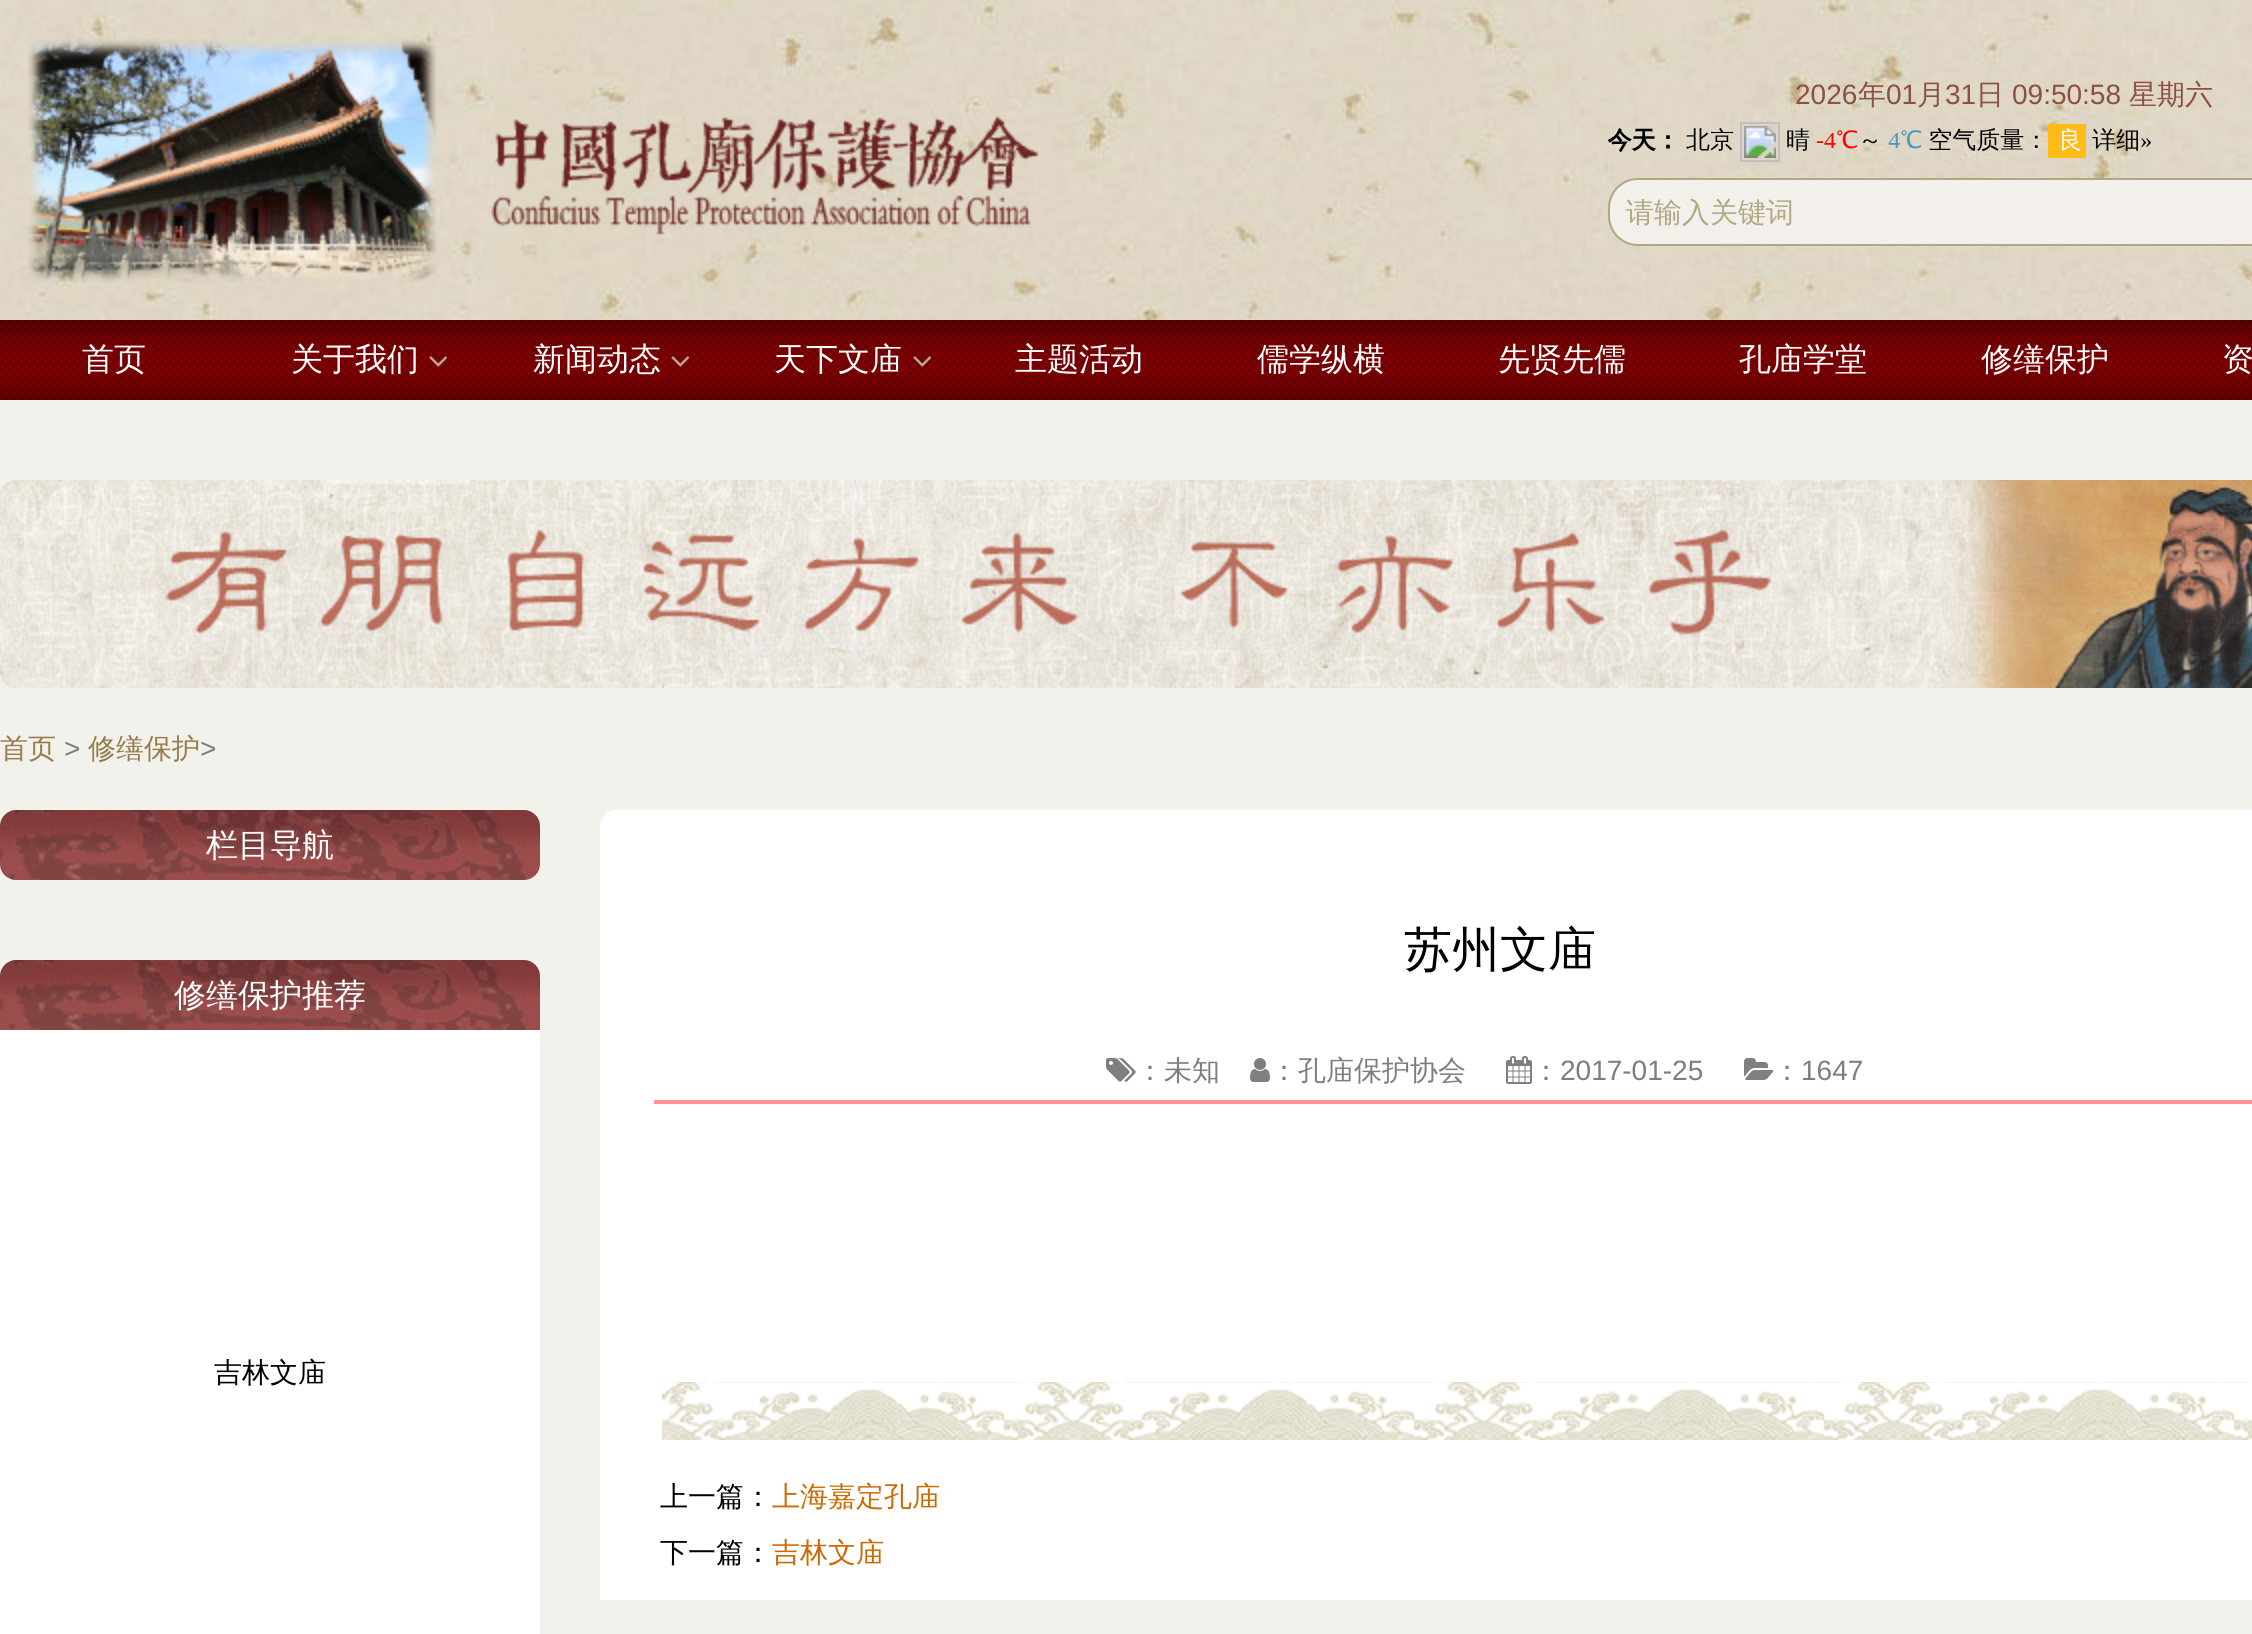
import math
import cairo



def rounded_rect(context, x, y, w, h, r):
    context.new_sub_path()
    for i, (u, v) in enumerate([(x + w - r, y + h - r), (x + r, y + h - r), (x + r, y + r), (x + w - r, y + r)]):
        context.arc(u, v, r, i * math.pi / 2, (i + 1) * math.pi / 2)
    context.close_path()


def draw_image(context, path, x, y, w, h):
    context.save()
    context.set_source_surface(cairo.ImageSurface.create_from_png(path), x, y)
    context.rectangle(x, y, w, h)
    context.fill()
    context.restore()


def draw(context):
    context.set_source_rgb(243 / 255, 241 / 255, 235 / 255)
    context.paint()
    draw_image(context, "images/1.png", 0, 0, 2252, 320)
    draw_image(context, "images/2.png", 28, 39, 1011, 244)
    draw_image(context, "images/3.png", 1608, 122, 543, 40)
    context.set_source_rgb(243 / 255, 240 / 255, 235 / 255)
    rounded_rect(context, 1609, 179, 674, 66, 29)
    context.fill_preserve()
    context.set_source_rgb(177 / 255, 167 / 255, 130 / 255)
    context.stroke()
    draw_image(context, "images/4.png", 0, 320, 2252, 80)
    draw_image(context, "images/5.png", 429, 356, 19, 11)
    draw_image(context, "images/6.png", 671, 356, 19, 11)
    draw_image(context, "images/7.png", 913, 356, 19, 11)
    context.set_source_rgb(225 / 255, 225 / 255, 225 / 255)
    rounded_rect(context, 0, 480, 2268, 208, 16)
    context.fill()
    draw_image(context, "images/8.png", 0, 480, 2252, 208)
    context.set_source_rgb(1, 1, 1)
    rounded_rect(context, 0, 810, 540, 70, 16)
    context.fill()
    draw_image(context, "images/9.png", 0, 810, 540, 70)
    rounded_rect(context, 0, 960, 540, 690, 16)
    context.fill()
    draw_image(context, "images/10.png", 0, 960, 540, 70)
    context.new_path()
    context.move_to(616, 810)
    context.line_to(2252, 810)
    context.curve_to(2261, 810, 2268, 817, 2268, 826)
    context.line_to(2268, 1600)
    context.line_to(600, 1600)
    context.line_to(600, 826)
    context.curve_to(600, 817, 607, 810, 616, 810)
    context.close_path()
    context.fill()
    context.new_path()
    context.move_to(616, 810)
    context.line_to(2252, 810)
    context.curve_to(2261, 810, 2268, 817, 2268, 826)
    context.line_to(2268, 1050)
    context.line_to(600, 1050)
    context.line_to(600, 826)
    context.curve_to(600, 817, 607, 810, 616, 810)
    context.close_path()
    context.fill()
    context.set_source_rgb(1, 148 / 255, 146 / 255)
    context.rectangle(654, 1100, 1598, 4)
    context.fill()
    draw_image(context, "images/11.png", 1106, 1058, 30, 24)
    draw_image(context, "images/12.png", 1250, 1058, 20, 24)
    draw_image(context, "images/13.png", 1506, 1056, 26, 28)
    draw_image(context, "images/14.png", 1744, 1058, 30, 22)
    draw_image(context, "images/15.png", 662, 1382, 1590, 58)
    context.select_font_face("Liberation Sans")
    context.set_font_size(28)
    context.set_source_rgb(140 / 255, 80 / 255, 67 / 255)
    context.move_to(1795, 104)
    context.show_text("2026")
    context.select_font_face("WenQuanYi Zen Hei Medium")
    context.move_to(1858, 104)
    context.show_text("年")
    context.select_font_face("Liberation Sans")
    context.move_to(1886, 104)
    context.show_text("01")
    context.select_font_face("WenQuanYi Zen Hei Medium")
    context.move_to(1917, 104)
    context.show_text("月")
    context.select_font_face("Liberation Sans")
    context.move_to(1945, 104)
    context.show_text("31")
    context.select_font_face("WenQuanYi Zen Hei Medium")
    context.move_to(1976, 104)
    context.show_text("日")
    context.select_font_face("Liberation Sans")
    context.move_to(2012, 104)
    context.show_text("09:50:58")
    context.select_font_face("WenQuanYi Zen Hei Medium")
    context.move_to(2129, 104)
    context.show_text("星期六")
    context.set_source_rgb(177 / 255, 167 / 255, 130 / 255)
    context.move_to(1626, 222)
    context.show_text("请输入关键词")
    context.set_font_size(32)
    context.set_source_rgb(1, 1, 1)
    context.move_to(82, 370)
    context.show_text("首页")
    context.move_to(291, 370)
    context.show_text("关于我们")
    context.move_to(533, 370)
    context.show_text("新闻动态")
    context.move_to(774, 370)
    context.show_text("天下文庙")
    context.move_to(1015, 370)
    context.show_text("主题活动")
    context.move_to(1257, 370)
    context.show_text("儒学纵横")
    context.move_to(1498, 370)
    context.show_text("先贤先儒")
    context.move_to(1739, 370)
    context.show_text("孔庙学堂")
    context.move_to(1981, 370)
    context.show_text("修缮保护")
    context.move_to(2222, 370)
    context.show_text("资")
    context.set_font_size(28)
    context.set_source_rgb(150 / 255, 123 / 255, 75 / 255)
    context.move_to(0, 758)
    context.show_text("首页")
    context.select_font_face("Liberation Sans")
    context.set_source_rgb(126 / 255, 126 / 255, 126 / 255)
    context.move_to(64, 758)
    context.show_text(">")
    context.select_font_face("WenQuanYi Zen Hei Medium")
    context.set_source_rgb(150 / 255, 123 / 255, 75 / 255)
    context.move_to(88, 758)
    context.show_text("修缮保护")
    context.select_font_face("Liberation Sans")
    context.set_source_rgb(126 / 255, 126 / 255, 126 / 255)
    context.move_to(200, 758)
    context.show_text(">")
    context.select_font_face("WenQuanYi Zen Hei Medium")
    context.set_font_size(32)
    context.set_source_rgb(1, 1, 1)
    context.move_to(206, 856)
    context.show_text("栏目导航")
    context.move_to(174, 1006)
    context.show_text("修缮保护推荐")
    context.set_font_size(28)
    context.set_source_rgb(0, 0, 0)
    context.move_to(214, 1382)
    context.show_text("吉林文庙")
    context.set_font_size(48)
    context.move_to(1404, 966)
    context.show_text("苏州文庙")
    context.set_font_size(28)
    context.set_source_rgb(126 / 255, 126 / 255, 126 / 255)
    context.move_to(1136, 1080)
    context.show_text("：未知")
    context.move_to(1270, 1080)
    context.show_text("：孔庙保护协会")
    context.move_to(1532, 1080)
    context.show_text("：")
    context.select_font_face("Liberation Sans")
    context.move_to(1560, 1080)
    context.show_text("2017-01-25")
    context.select_font_face("WenQuanYi Zen Hei Medium")
    context.move_to(1773, 1080)
    context.show_text("：")
    context.select_font_face("Liberation Sans")
    context.move_to(1801, 1080)
    context.show_text("1647")
    context.select_font_face("WenQuanYi Zen Hei Medium")
    context.set_source_rgb(0, 0, 0)
    context.move_to(660, 1506)
    context.show_text("上一篇：")
    context.set_source_rgb(204 / 255, 105 / 255, 0)
    context.move_to(772, 1506)
    context.show_text("上海嘉定孔庙")
    context.set_source_rgb(0, 0, 0)
    context.move_to(660, 1562)
    context.show_text("下一篇：")
    context.set_source_rgb(204 / 255, 105 / 255, 0)
    context.move_to(772, 1562)
    context.show_text("吉林文庙")


surface = cairo.ImageSurface(cairo.Format.RGB24, 2252, 1634)
context = cairo.Context(surface)
options = cairo.FontOptions()
options.set_hint_metrics(cairo.HintMetrics.OFF)
options.set_hint_style(cairo.HintStyle.NONE)
context.set_font_options(options)
context.set_miter_limit(4)
draw(context)
surface.write_to_png("out.png")
